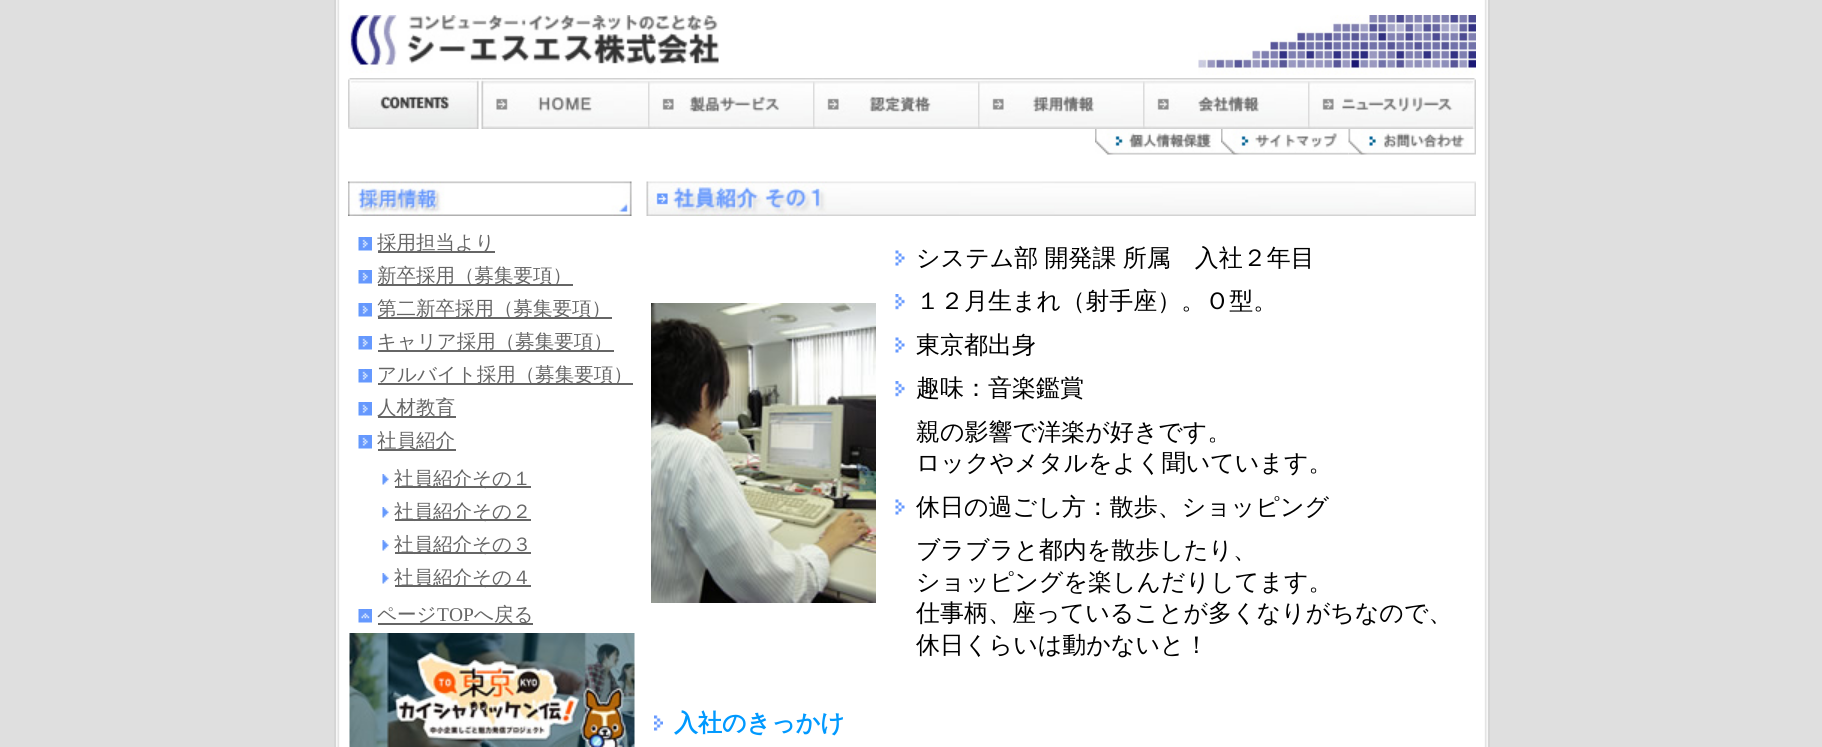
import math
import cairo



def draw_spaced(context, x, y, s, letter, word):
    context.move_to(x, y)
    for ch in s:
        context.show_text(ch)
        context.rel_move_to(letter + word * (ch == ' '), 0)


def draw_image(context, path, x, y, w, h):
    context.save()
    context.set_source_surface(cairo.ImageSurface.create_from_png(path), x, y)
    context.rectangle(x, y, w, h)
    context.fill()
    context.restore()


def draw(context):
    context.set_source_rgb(223 / 255, 223 / 255, 223 / 255)
    context.paint()
    draw_image(context, "images/1.png", 334, 0, 14, 747)
    context.set_source_rgb(1, 1, 1)
    context.rectangle(348, 0, 1128, 747)
    context.fill()
    draw_image(context, "images/2.png", 348, 15, 371, 58)
    draw_image(context, "images/3.png", 1198, 15, 278, 60)
    draw_image(context, "images/4.png", 348, 78, 134, 51)
    draw_image(context, "images/5.png", 481, 78, 167, 51)
    draw_image(context, "images/6.png", 648, 78, 165, 51)
    draw_image(context, "images/7.png", 813, 78, 165, 51)
    draw_image(context, "images/8.png", 978, 78, 165, 51)
    draw_image(context, "images/9.png", 1143, 78, 165, 51)
    draw_image(context, "images/10.png", 1308, 78, 168, 51)
    draw_image(context, "images/11.png", 1095, 129, 126, 26)
    draw_image(context, "images/12.png", 1221, 129, 128, 26)
    draw_image(context, "images/13.png", 1348, 129, 128, 26)
    draw_image(context, "images/14.png", 348, 181, 284, 35)
    draw_image(context, "images/15.png", 358, 237, 14, 14)
    context.set_source_rgb(102 / 255, 102 / 255, 102 / 255)
    context.rectangle(378, 251, 117, 2)
    context.fill()
    draw_image(context, "images/15.png", 358, 270, 14, 14)
    context.rectangle(378, 284, 195, 2)
    context.fill()
    draw_image(context, "images/15.png", 358, 303, 14, 14)
    context.rectangle(378, 317, 234, 2)
    context.fill()
    draw_image(context, "images/15.png", 358, 336, 14, 14)
    context.rectangle(378, 350, 236, 2)
    context.fill()
    draw_image(context, "images/15.png", 358, 369, 14, 14)
    context.rectangle(378, 383, 255, 2)
    context.fill()
    draw_image(context, "images/15.png", 358, 402, 14, 14)
    context.rectangle(378, 416, 78, 2)
    context.fill()
    draw_image(context, "images/15.png", 358, 435, 14, 14)
    context.rectangle(378, 449, 78, 2)
    context.fill()
    draw_image(context, "images/16.png", 382, 474, 7, 11)
    context.rectangle(395, 486, 136, 2)
    context.fill()
    draw_image(context, "images/16.png", 382, 507, 7, 11)
    context.rectangle(395, 519, 136, 2)
    context.fill()
    draw_image(context, "images/16.png", 382, 540, 7, 11)
    context.rectangle(395, 552, 136, 2)
    context.fill()
    draw_image(context, "images/16.png", 382, 573, 7, 11)
    context.rectangle(395, 585, 136, 2)
    context.fill()
    draw_image(context, "images/17.png", 358, 609, 14, 14)
    context.rectangle(378, 623, 155, 2)
    context.fill()
    draw_image(context, "images/18.png", 349, 633, 286, 114)
    draw_image(context, "images/19.png", 646, 181, 830, 35)
    draw_image(context, "images/20.png", 651, 303, 225, 300)
    draw_image(context, "images/21.png", 895, 250, 10, 16)
    draw_image(context, "images/22.png", 895, 294, 10, 16)
    draw_image(context, "images/21.png", 895, 337, 10, 16)
    draw_image(context, "images/22.png", 895, 381, 10, 16)
    draw_image(context, "images/21.png", 895, 499, 10, 16)
    draw_image(context, "images/23.png", 654, 715, 9, 16)
    draw_image(context, "images/24.png", 1476, 0, 14, 747)
    context.select_font_face("WenQuanYi Zen Hei Medium")
    context.set_font_size(19.5)
    context.move_to(377, 249)
    context.show_text("採用担当より")
    context.move_to(377, 282)
    context.show_text("新卒採用（募集要項）")
    context.move_to(377, 315)
    context.show_text("第二新卒採用（募集要項）")
    context.move_to(377, 348)
    context.show_text("キャリア採用（募集要項）")
    context.move_to(377, 381)
    context.show_text("アルバイト採用（募集要項）")
    context.move_to(377, 414)
    context.show_text("人材教育")
    context.move_to(377, 447)
    context.show_text("社員紹介")
    context.move_to(394, 485)
    context.show_text("社員紹介その１")
    context.move_to(394, 518)
    context.show_text("社員紹介その２")
    context.move_to(394, 551)
    context.show_text("社員紹介その３")
    context.move_to(394, 584)
    context.show_text("社員紹介その４")
    context.move_to(377, 621)
    context.show_text("ページ")
    context.select_font_face("Liberation Serif")
    context.move_to(437, 621)
    context.show_text("TOP")
    context.select_font_face("WenQuanYi Zen Hei Medium")
    context.move_to(474, 621)
    context.show_text("へ戻る")
    context.set_font_size(24)
    context.set_source_rgb(0, 0, 0)
    draw_spaced(context, 916, 266, "システム部 開発課 所属　入社２年目", 0, -1)
    context.move_to(916, 309)
    context.show_text("１２月生まれ（射手座）。Ｏ型。")
    context.move_to(916, 353)
    context.show_text("東京都出身")
    context.move_to(916, 396)
    context.show_text("趣味：音楽鑑賞")
    context.move_to(916, 440)
    context.show_text("親の影響で洋楽が好きです。")
    context.move_to(916, 471)
    context.show_text("ロックやメタルをよく聞いています。")
    context.move_to(916, 515)
    context.show_text("休日の過ごし方：散歩、ショッピング")
    context.move_to(916, 558)
    context.show_text("ブラブラと都内を散歩したり、")
    context.move_to(916, 590)
    context.show_text("ショッピングを楽しんだりしてます。")
    context.move_to(916, 621)
    context.show_text("仕事柄、座っていることが多くなりがちなので、")
    context.move_to(916, 653)
    context.show_text("休日くらいは動かないと！")
    context.select_font_face("WenQuanYi Zen Hei", cairo.FontSlant.NORMAL, cairo.FontWeight.BOLD)
    context.set_source_rgb(0, 153 / 255, 1)
    context.move_to(674, 731)
    context.show_text("入社のきっかけ")


surface = cairo.ImageSurface(cairo.Format.RGB24, 1822, 747)
context = cairo.Context(surface)
options = cairo.FontOptions()
options.set_hint_metrics(cairo.HintMetrics.OFF)
options.set_hint_style(cairo.HintStyle.NONE)
context.set_font_options(options)
context.set_miter_limit(4)
draw(context)
surface.write_to_png("out.png")
